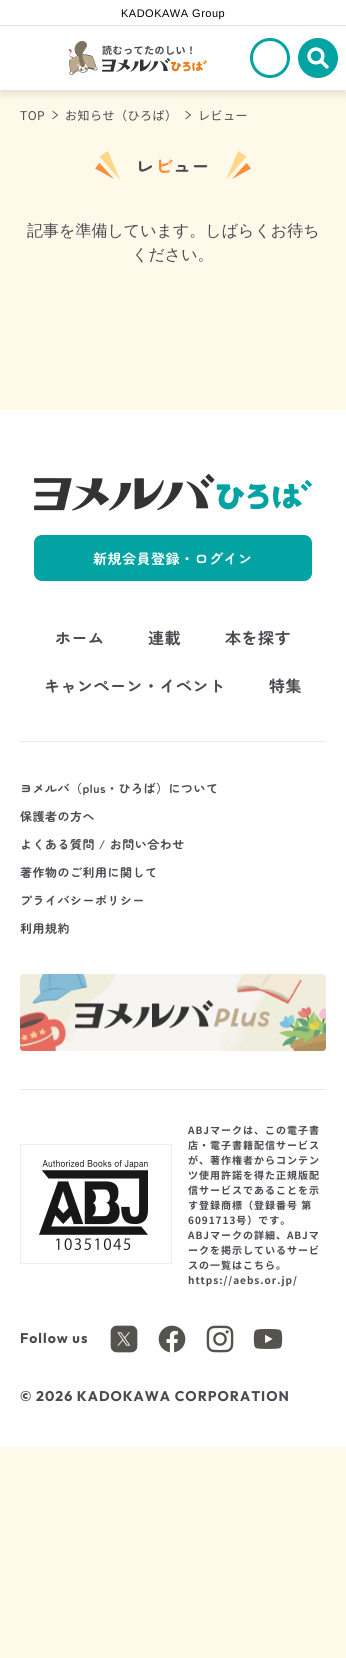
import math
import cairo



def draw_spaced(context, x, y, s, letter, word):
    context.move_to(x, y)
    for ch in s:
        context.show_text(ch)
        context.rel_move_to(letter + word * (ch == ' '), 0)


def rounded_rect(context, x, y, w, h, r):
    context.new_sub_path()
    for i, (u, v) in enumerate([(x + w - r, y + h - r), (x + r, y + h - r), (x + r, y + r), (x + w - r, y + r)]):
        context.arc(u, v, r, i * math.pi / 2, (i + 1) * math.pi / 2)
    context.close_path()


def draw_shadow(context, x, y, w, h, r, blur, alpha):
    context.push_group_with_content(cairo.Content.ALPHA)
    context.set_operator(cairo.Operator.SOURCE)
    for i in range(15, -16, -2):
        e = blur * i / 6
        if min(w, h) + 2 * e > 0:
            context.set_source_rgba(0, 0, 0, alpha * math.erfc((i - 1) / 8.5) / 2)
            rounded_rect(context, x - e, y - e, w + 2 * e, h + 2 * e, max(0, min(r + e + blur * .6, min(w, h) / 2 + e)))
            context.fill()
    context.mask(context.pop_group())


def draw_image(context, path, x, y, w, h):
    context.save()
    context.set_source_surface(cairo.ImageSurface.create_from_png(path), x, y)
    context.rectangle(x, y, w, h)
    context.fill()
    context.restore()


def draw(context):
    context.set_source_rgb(1, 249 / 255, 233 / 255)
    context.paint()
    context.set_source_rgb(1, 1, 1)
    context.rectangle(0, 0, 346, 25)
    context.fill()
    context.set_source_rgb(233 / 255, 233 / 255, 233 / 255)
    context.rectangle(0, 25, 346, 1)
    context.fill()
    context.set_source_rgb(0, 0, 0)
    draw_shadow(context, 0, 30, 346, 64, 0, 4, 0.1)
    context.set_source_rgb(1, 1, 1)
    context.rectangle(0, 26, 346, 64)
    context.fill()
    draw_image(context, "images/1.png", 68, 41, 30, 34)
    draw_image(context, "images/2.png", 102, 58, 105, 14)
    context.arc(270, 58, 18.5, 0, 2 * math.pi)
    context.set_source_rgb(3 / 255, 163 / 255, 163 / 255)
    context.set_line_width(3)
    context.stroke()
    context.arc(318, 58, 20, 0, 2 * math.pi)
    context.fill()
    draw_image(context, "images/3.png", 307, 47, 22, 22)
    draw_image(context, "images/4.png", 52, 110, 6, 10)
    draw_image(context, "images/4.png", 185, 110, 6, 10)
    context.set_source_rgb(1, 140 / 255, 56 / 255)
    context.new_path()
    context.move_to(114, 179)
    context.line_to(99.5, 163)
    context.line_to(95, 168.5)
    context.close_path()
    context.fill()
    context.set_source_rgb(1, 215 / 255, 138 / 255)
    context.new_path()
    context.move_to(120, 180)
    context.line_to(108, 151)
    context.line_to(99.5, 156.5)
    context.close_path()
    context.fill()
    context.set_source_rgb(1, 140 / 255, 56 / 255)
    context.new_path()
    context.move_to(232, 179)
    context.line_to(246.5, 163)
    context.line_to(251, 168.5)
    context.close_path()
    context.fill()
    context.set_source_rgb(1, 215 / 255, 138 / 255)
    context.new_path()
    context.move_to(226, 180)
    context.line_to(238, 151)
    context.line_to(246.5, 156.5)
    context.close_path()
    context.fill()
    context.set_source_rgb(1, 1, 1)
    context.rectangle(0, 410, 346, 1037)
    context.fill()
    draw_image(context, "images/5.png", 34, 474, 278, 37)
    context.set_source_rgb(3 / 255, 163 / 255, 163 / 255)
    rounded_rect(context, 34, 535, 278, 46, 8)
    context.fill()
    context.set_source_rgb(233 / 255, 233 / 255, 233 / 255)
    context.rectangle(20, 741, 306, 1)
    context.fill()
    draw_image(context, "images/6.png", 20, 974, 306, 77)
    context.rectangle(20, 1089, 306, 1)
    context.fill()
    draw_image(context, "images/7.png", 20, 1144, 152, 120)
    draw_image(context, "images/8.png", 110, 1325, 28, 28)
    draw_image(context, "images/9.png", 158, 1325, 28, 28)
    draw_image(context, "images/10.png", 206, 1325, 28, 28)
    draw_image(context, "images/11.png", 253, 1329, 30, 20)
    context.select_font_face("Liberation Sans")
    context.set_font_size(11)
    context.set_source_rgb(0, 0, 0)
    draw_spaced(context, 121, 17, "KADOKAWA Group", 0.5, 0)
    context.select_font_face("Noto Sans JP", cairo.FontSlant.NORMAL, cairo.FontWeight.BOLD)
    context.set_font_size(10)
    context.set_source_rgb(74 / 255, 74 / 255, 81 / 255)
    draw_spaced(context, 102, 54, "読むってたのしい！", 0.5, 0)
    context.select_font_face("Noto Sans JP")
    context.set_font_size(12)
    draw_spaced(context, 20, 120, "TOP", 0.5, 0)
    draw_spaced(context, 65, 120, "お知らせ（ひろば）", 0.5, 0)
    draw_spaced(context, 198, 120, "レビュー", 0.5, 0)
    context.select_font_face("Zen Maru Gothic", cairo.FontSlant.NORMAL, cairo.FontWeight.BOLD)
    context.set_font_size(18)
    draw_spaced(context, 136, 173, "レ", 0.5, 0)
    context.set_source_rgb(1, 140 / 255, 56 / 255)
    draw_spaced(context, 155, 173, "ビ", 0.5, 0)
    context.set_source_rgb(74 / 255, 74 / 255, 81 / 255)
    draw_spaced(context, 173, 173, "ュー", 0.5, 0)
    context.select_font_face("WenQuanYi Zen Hei Medium")
    context.set_font_size(16)
    context.move_to(27, 236)
    context.show_text("記事を準備しています。しばらくお待ち")
    context.move_to(132, 260)
    context.show_text("ください。")
    context.select_font_face("Zen Maru Gothic", cairo.FontSlant.NORMAL, cairo.FontWeight.BOLD)
    context.set_font_size(14)
    context.set_source_rgb(1, 1, 1)
    draw_spaced(context, 93, 564, "新規会員登録・ログイン", 0.5, 0)
    context.set_font_size(16)
    context.set_source_rgb(74 / 255, 74 / 255, 81 / 255)
    draw_spaced(context, 55, 644, "ホーム", 0.5, 0)
    draw_spaced(context, 148, 644, "連載", 0.5, 0)
    draw_spaced(context, 225, 644, "本を探す", 0.5, 0)
    draw_spaced(context, 44, 692, "キャンペーン・イベント", 0.5, 0)
    draw_spaced(context, 269, 692, "特集", 0.5, 0)
    context.set_font_size(12)
    draw_spaced(context, 20, 793, "ヨメルバ（plus・ひろば）について", 0.5, 0)
    draw_spaced(context, 20, 821, "保護者の方へ", 0.5, 0)
    draw_spaced(context, 20, 849, "よくある質問 / お問い合わせ", 0.5, 0)
    draw_spaced(context, 20, 877, "著作物のご利用に関して", 0.5, 0)
    draw_spaced(context, 20, 905, "プライバシーポリシー", 0.5, 0)
    draw_spaced(context, 20, 933, "利用規約", 0.5, 0)
    context.select_font_face("Noto Sans JP", cairo.FontSlant.NORMAL, cairo.FontWeight.BOLD)
    context.set_font_size(10)
    draw_spaced(context, 188, 1134, "ABJマークは、この電子書", 1, 0)
    draw_spaced(context, 188, 1149, "店・電子書籍配信サービス", 1, 0)
    draw_spaced(context, 188, 1164, "が、著作権者からコンテン", 1, 0)
    draw_spaced(context, 188, 1179, "ツ使用許諾を得た正規版配", 1, 0)
    draw_spaced(context, 188, 1194, "信サービスであることを示", 1, 0)
    draw_spaced(context, 188, 1209, "す登録商標（登録番号 第", 1, 0)
    draw_spaced(context, 188, 1224, "6091713号）です。", 1, 0)
    draw_spaced(context, 188, 1239, "ABJマークの詳細、ABJマ", 1, 0)
    draw_spaced(context, 188, 1254, "ークを掲示しているサービ", 1, 0)
    draw_spaced(context, 188, 1269, "スの一覧はこちら。", 1, 0)
    draw_spaced(context, 188, 1284, "https://aebs.or.jp/", 1, 0)
    context.select_font_face("Outfit", cairo.FontSlant.NORMAL, cairo.FontWeight.BOLD)
    context.set_font_size(14)
    draw_spaced(context, 20, 1343, "Follow us", 1, 0)
    draw_spaced(context, 20, 1401, "© 2026 KADOKAWA CORPORATION", 1, 0)


surface = cairo.ImageSurface(cairo.Format.RGB24, 346, 1658)
context = cairo.Context(surface)
options = cairo.FontOptions()
options.set_hint_metrics(cairo.HintMetrics.OFF)
options.set_hint_style(cairo.HintStyle.NONE)
context.set_font_options(options)
context.set_miter_limit(4)
draw(context)
surface.write_to_png("out.png")
